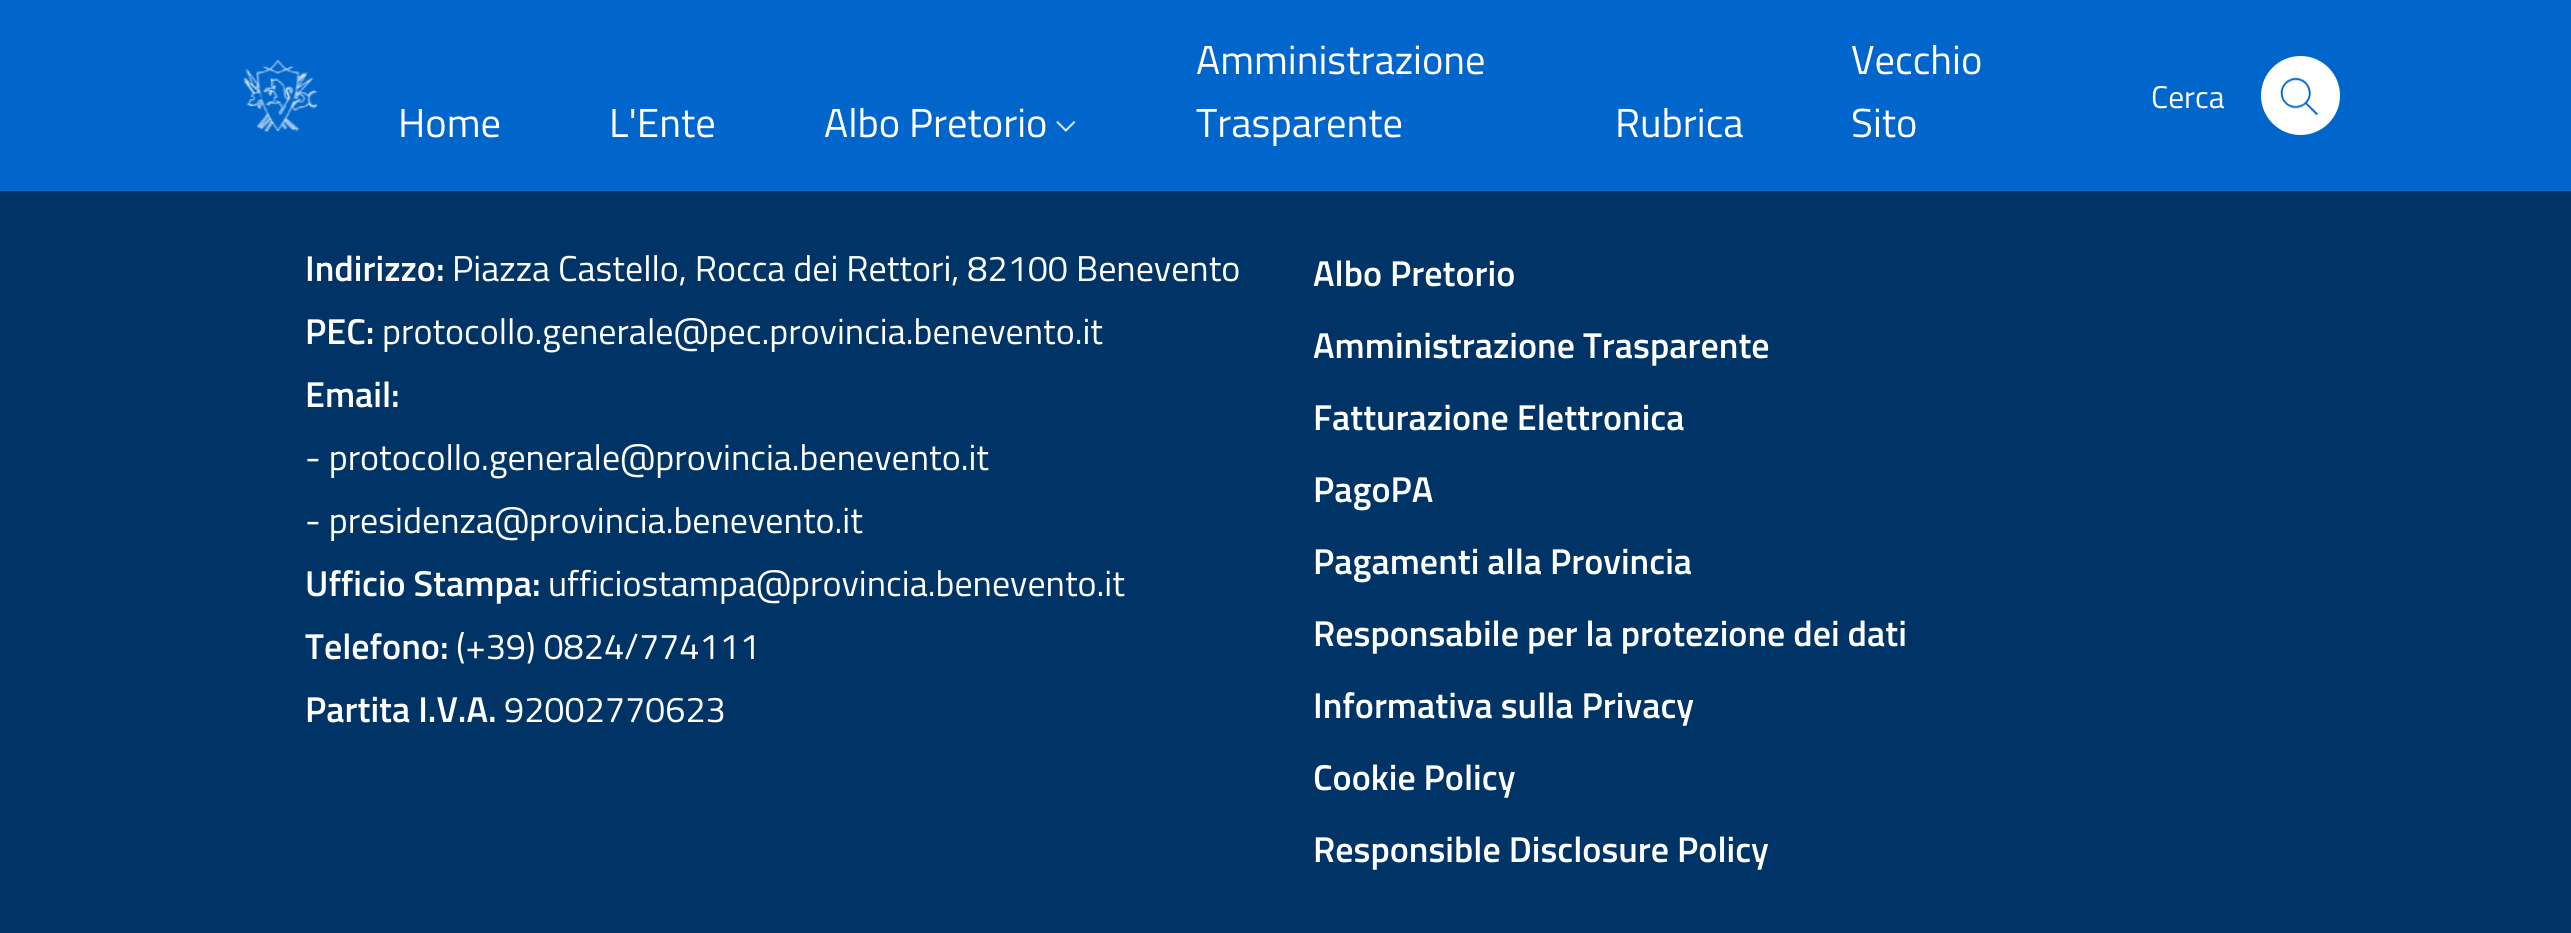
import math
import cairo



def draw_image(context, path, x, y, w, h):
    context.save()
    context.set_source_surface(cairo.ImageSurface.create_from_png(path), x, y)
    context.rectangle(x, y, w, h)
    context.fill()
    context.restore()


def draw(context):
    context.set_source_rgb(0, 51 / 255, 102 / 255)
    context.paint()
    context.set_source_rgb(0, 102 / 255, 204 / 255)
    context.rectangle(0, 0, 2571, 191)
    context.fill()
    draw_image(context, "images/1.png", 243, 59, 75, 73)
    draw_image(context, "images/2.png", 1056, 120, 20, 12)
    context.set_source_rgb(1, 1, 1)
    context.arc(2300.5, 95.5, 39.5, 0, 2 * math.pi)
    context.fill()
    draw_image(context, "images/3.png", 2280, 77, 38, 39)
    context.select_font_face("Titillium Web")
    context.set_font_size(40.5)
    context.move_to(398, 137)
    context.show_text("Home")
    context.move_to(609, 137)
    context.show_text("L'Ente")
    context.move_to(824, 137)
    context.show_text("Albo Pretorio")
    context.move_to(1196, 74)
    context.show_text("Amministrazione")
    context.move_to(1196, 137)
    context.show_text("Trasparente")
    context.move_to(1615, 137)
    context.show_text("Rubrica")
    context.move_to(1851, 74)
    context.show_text("Vecchio")
    context.move_to(1851, 137)
    context.show_text("Sito")
    context.set_font_size(31.5)
    context.move_to(2151, 108)
    context.show_text("Cerca")
    context.select_font_face("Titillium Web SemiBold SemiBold")
    context.set_font_size(36)
    context.move_to(305, 281)
    context.show_text("Indirizzo:")
    context.select_font_face("Titillium Web")
    context.move_to(452, 281)
    context.show_text("Piazza Castello, Rocca dei Rettori, 82100 Benevento")
    context.select_font_face("Titillium Web SemiBold SemiBold")
    context.move_to(305, 344)
    context.show_text("PEC:")
    context.select_font_face("Titillium Web")
    context.move_to(382, 344)
    context.show_text("protocollo.generale@pec.provincia.benevento.it")
    context.select_font_face("Titillium Web SemiBold SemiBold")
    context.move_to(305, 407)
    context.show_text("Email:")
    context.select_font_face("Titillium Web")
    context.move_to(305, 470)
    context.show_text("- protocollo.generale@provincia.benevento.it")
    context.move_to(305, 533)
    context.show_text("- presidenza@provincia.benevento.it")
    context.select_font_face("Titillium Web SemiBold SemiBold")
    context.move_to(305, 596)
    context.show_text("Ufficio Stampa:")
    context.select_font_face("Titillium Web")
    context.move_to(548, 596)
    context.show_text("ufficiostampa@provincia.benevento.it")
    context.select_font_face("Titillium Web SemiBold SemiBold")
    context.move_to(305, 659)
    context.show_text("Telefono:")
    context.select_font_face("Titillium Web")
    context.move_to(456, 659)
    context.show_text("(+39) 0824/774111")
    context.select_font_face("Titillium Web SemiBold SemiBold")
    context.move_to(305, 722)
    context.show_text("Partita I.V.A.")
    context.select_font_face("Titillium Web")
    context.move_to(504, 722)
    context.show_text("92002770623")
    context.select_font_face("Titillium Web SemiBold SemiBold")
    context.move_to(1313, 286)
    context.show_text("Albo Pretorio")
    context.move_to(1313, 358)
    context.show_text("Amministrazione Trasparente")
    context.move_to(1313, 430)
    context.show_text("Fatturazione Elettronica")
    context.move_to(1313, 502)
    context.show_text("PagoPA")
    context.move_to(1313, 574)
    context.show_text("Pagamenti alla Provincia")
    context.move_to(1313, 646)
    context.show_text("Responsabile per la protezione dei dati")
    context.move_to(1313, 718)
    context.show_text("Informativa sulla Privacy")
    context.move_to(1313, 790)
    context.show_text("Cookie Policy")
    context.move_to(1313, 862)
    context.show_text("Responsible Disclosure Policy")


surface = cairo.ImageSurface(cairo.Format.RGB24, 2571, 933)
context = cairo.Context(surface)
options = cairo.FontOptions()
options.set_hint_metrics(cairo.HintMetrics.OFF)
options.set_hint_style(cairo.HintStyle.NONE)
context.set_font_options(options)
context.set_miter_limit(4)
draw(context)
surface.write_to_png("out.png")
